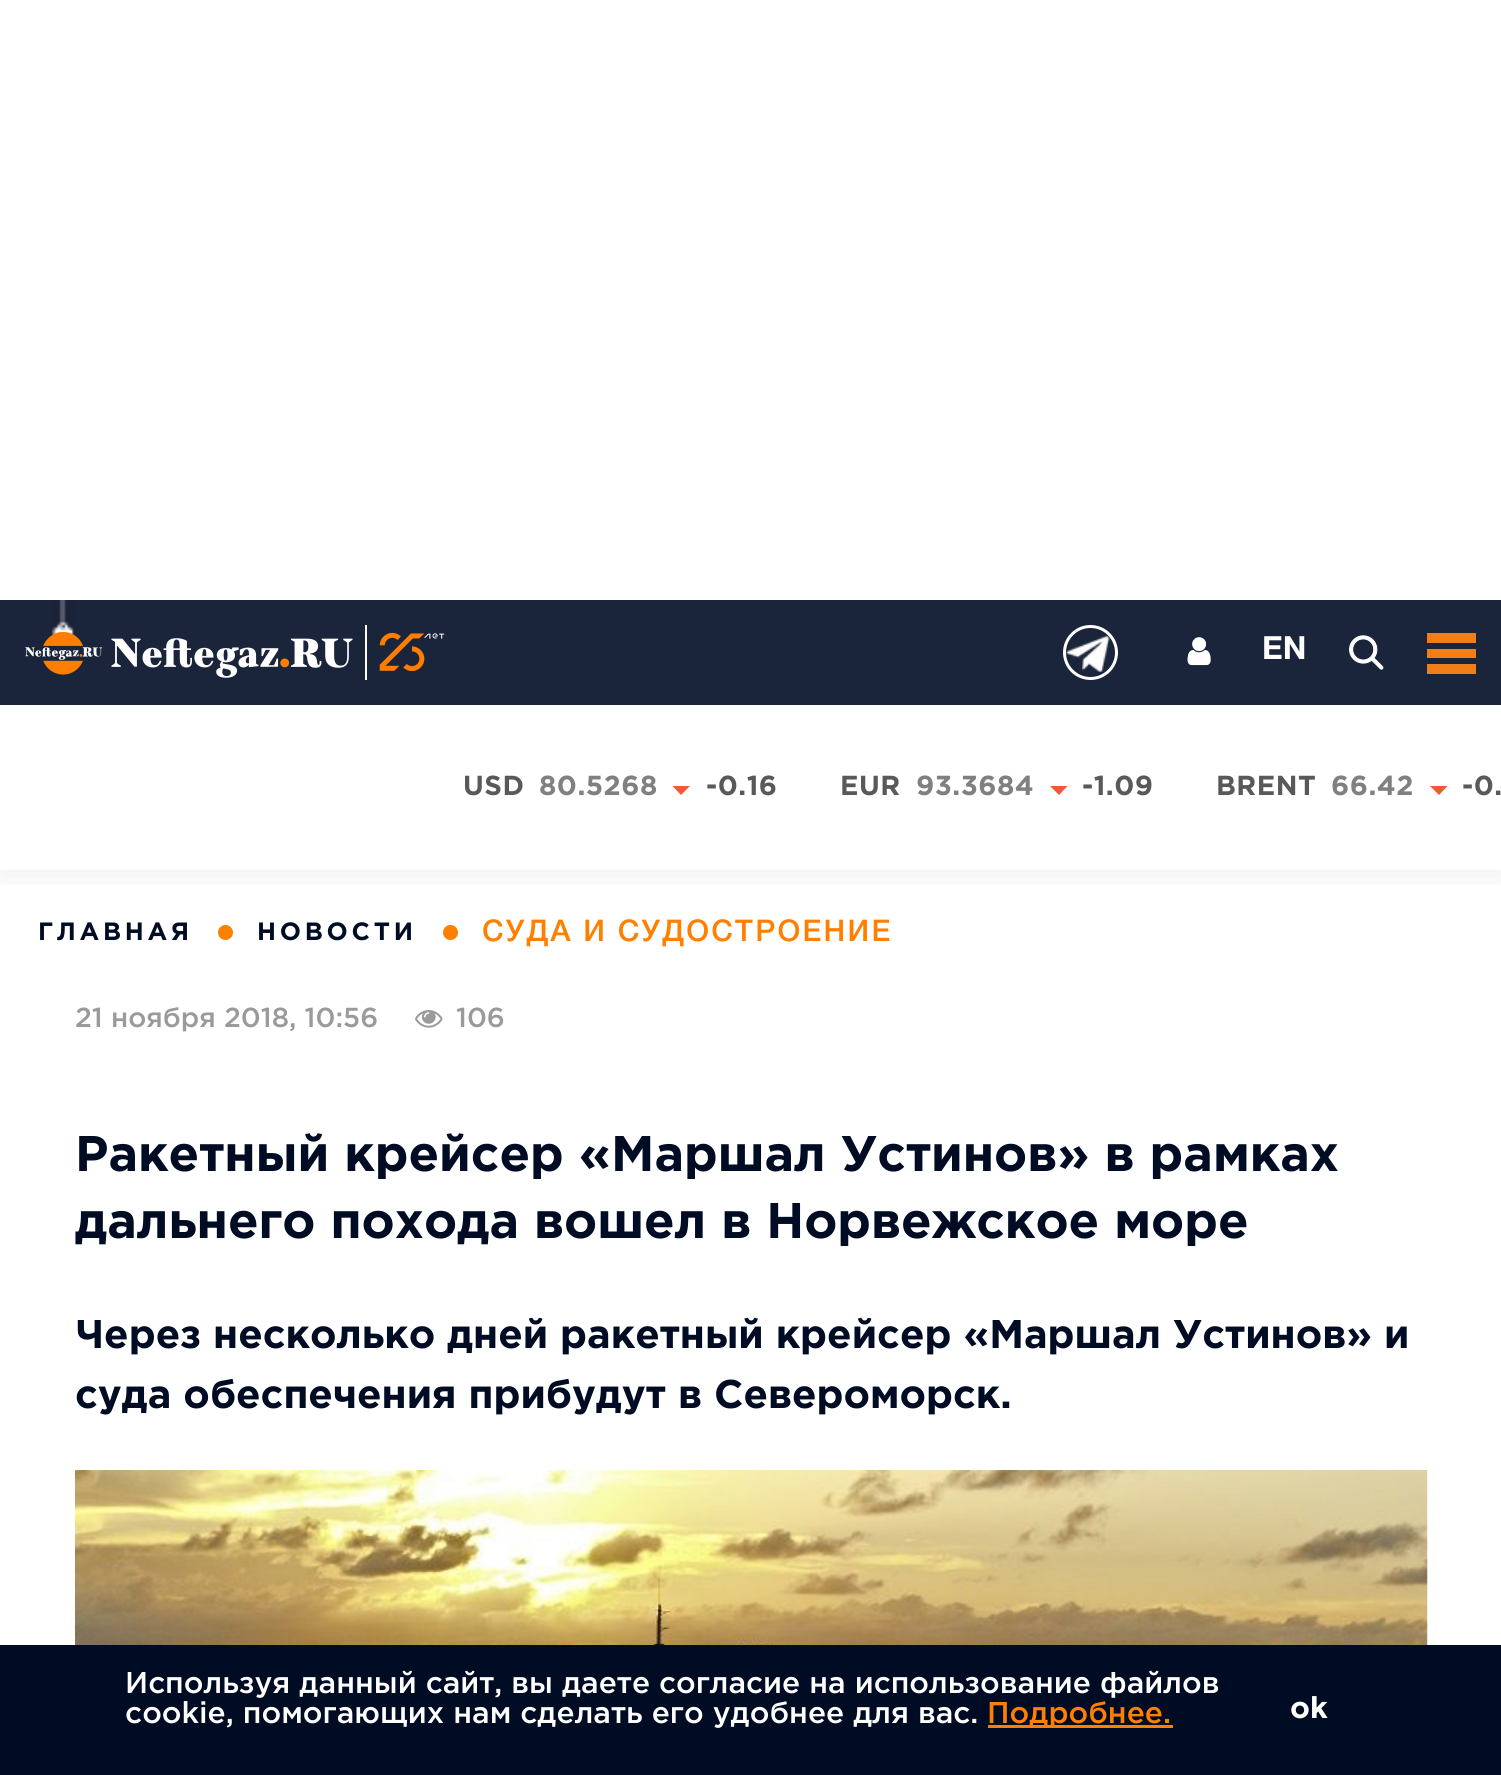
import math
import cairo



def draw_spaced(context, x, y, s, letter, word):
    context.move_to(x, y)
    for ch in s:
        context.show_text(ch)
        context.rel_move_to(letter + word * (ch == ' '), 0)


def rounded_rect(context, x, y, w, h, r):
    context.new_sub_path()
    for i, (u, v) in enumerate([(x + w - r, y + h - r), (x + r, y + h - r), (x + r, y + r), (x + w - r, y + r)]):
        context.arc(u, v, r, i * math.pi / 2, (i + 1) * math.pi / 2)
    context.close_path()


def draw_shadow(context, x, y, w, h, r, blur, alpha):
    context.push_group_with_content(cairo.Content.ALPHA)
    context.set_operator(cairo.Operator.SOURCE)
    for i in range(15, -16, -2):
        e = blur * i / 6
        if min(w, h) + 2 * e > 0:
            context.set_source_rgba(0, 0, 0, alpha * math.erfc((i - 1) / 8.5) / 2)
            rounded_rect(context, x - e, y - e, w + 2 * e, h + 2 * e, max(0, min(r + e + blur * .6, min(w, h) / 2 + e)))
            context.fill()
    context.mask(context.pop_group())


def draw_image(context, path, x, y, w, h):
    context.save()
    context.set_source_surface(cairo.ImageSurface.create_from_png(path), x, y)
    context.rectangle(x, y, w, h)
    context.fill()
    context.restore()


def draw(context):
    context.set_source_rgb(1, 1, 1)
    context.paint()
    context.set_source_rgb(1, 127 / 255, 0)
    context.arc(225.5, 932.5, 7.5, 0, 2 * math.pi)
    context.fill()
    context.arc(450.5, 932.5, 7.5, 0, 2 * math.pi)
    context.fill()
    context.save()
    context.rectangle(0, 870, 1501, 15)
    context.clip()
    context.set_source_rgb(0, 0, 0)
    draw_shadow(context, 0, 710, 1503, 165, 0, 17.5, 0.07)
    context.restore()
    context.set_source_rgb(26 / 255, 36 / 255, 58 / 255)
    context.rectangle(0, 600, 1501, 105)
    context.fill()
    draw_image(context, "images/1.png", 51, 600, 25, 35)
    draw_image(context, "images/2.png", 25, 625, 420, 55)
    draw_image(context, "images/3.png", 1066, 635, 44, 37)
    context.arc(1090.5, 652.5, 26, 0, 2 * math.pi)
    context.set_source_rgb(1, 1, 1)
    context.set_line_width(3)
    context.stroke()
    draw_image(context, "images/4.png", 1187, 637, 24, 29)
    draw_image(context, "images/5.png", 1349, 635, 35, 35)
    context.set_source_rgb(240 / 255, 126 / 255, 25 / 255)
    context.rectangle(1427, 633, 49, 10)
    context.fill()
    context.rectangle(1427, 649, 49, 9)
    context.fill()
    context.rectangle(1427, 664, 49, 10)
    context.fill()
    context.set_source_rgb(242 / 255, 88 / 255, 50 / 255)
    context.set_fill_rule(cairo.FillRule.EVEN_ODD)
    context.new_path()
    context.move_to(690, 786)
    context.line_to(681, 795)
    context.line_to(672.5, 786)
    context.close_path()
    context.fill()
    context.new_path()
    context.move_to(1067.5, 786)
    context.line_to(1059, 795)
    context.line_to(1050, 786)
    context.close_path()
    context.fill()
    context.new_path()
    context.move_to(1447.5, 786)
    context.line_to(1439, 795)
    context.line_to(1430, 786)
    context.close_path()
    context.fill()
    draw_image(context, "images/6.png", 415, 1010, 28, 18)
    draw_image(context, "images/7.png", 75, 1470, 1353, 175)
    context.set_source_rgb(0, 12 / 255, 36 / 255)
    context.rectangle(0, 1645, 1501, 130)
    context.fill()
    context.set_source_rgb(1, 127 / 255, 0)
    context.rectangle(988, 1725, 185, 3)
    context.fill()
    context.select_font_face("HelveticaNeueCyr", cairo.FontSlant.NORMAL, cairo.FontWeight.BOLD)
    context.set_font_size(32)
    context.set_source_rgb(1, 1, 1)
    context.move_to(1262, 659)
    context.show_text("EN")
    context.select_font_face("Gotham", cairo.FontSlant.NORMAL, cairo.FontWeight.BOLD)
    context.set_font_size(27.5)
    context.set_source_rgb(89 / 255, 89 / 255, 89 / 255)
    draw_spaced(context, 463, 795, "USD", 0.5, 0)
    context.set_source_rgb(128 / 255, 128 / 255, 128 / 255)
    draw_spaced(context, 539, 795, "80.5268", 0.5, 0)
    context.set_source_rgb(89 / 255, 89 / 255, 89 / 255)
    draw_spaced(context, 706, 795, "-0.16", 0.5, 0)
    draw_spaced(context, 840, 795, "EUR", 0.5, 0)
    context.set_source_rgb(128 / 255, 128 / 255, 128 / 255)
    draw_spaced(context, 916, 795, "93.3684", 0.5, 0)
    context.set_source_rgb(89 / 255, 89 / 255, 89 / 255)
    draw_spaced(context, 1082, 795, "-1.09", 0.5, 0)
    draw_spaced(context, 1216, 795, "BRENT", 0.5, 0)
    context.set_source_rgb(128 / 255, 128 / 255, 128 / 255)
    draw_spaced(context, 1331, 795, "66.42", 0.5, 0)
    context.set_source_rgb(89 / 255, 89 / 255, 89 / 255)
    draw_spaced(context, 1462, 795, "-0.", 0.5, 0)
    context.set_font_size(25)
    context.set_source_rgb(0, 12 / 255, 36 / 255)
    draw_spaced(context, 38, 940, "ГЛАВНАЯ", 3.75, 0)
    draw_spaced(context, 257, 940, "НОВОСТИ", 3.75, 0)
    context.select_font_face("HelveticaNeueCyr Medium")
    context.set_font_size(30)
    context.set_source_rgb(1, 127 / 255, 0)
    draw_spaced(context, 482, 941, "СУДА И СУДОСТРОЕНИЕ", 2.25, 0)
    context.select_font_face("Gotham")
    context.set_font_size(27.5)
    context.set_source_rgb(154 / 255, 154 / 255, 154 / 255)
    context.move_to(75, 1027)
    context.show_text("21 ноября 2018, 10:56")
    context.move_to(456, 1027)
    context.show_text("106")
    context.select_font_face("Gotham", cairo.FontSlant.NORMAL, cairo.FontWeight.BOLD)
    context.set_font_size(50)
    context.set_source_rgb(0, 12 / 255, 36 / 255)
    context.move_to(75, 1171)
    context.show_text("Ракетный крейсер «Маршал Устинов» в рамках")
    context.move_to(75, 1238)
    context.show_text("дальнего похода вошел в Норвежское море")
    context.set_font_size(40)
    context.move_to(75, 1348)
    context.show_text("Через несколько дней ракетный крейсер «Маршал Устинов» и")
    context.move_to(75, 1408)
    context.show_text("суда обеспечения прибудут в Североморск.")
    context.select_font_face("Gotham")
    context.set_font_size(30)
    context.set_source_rgb(1, 1, 1)
    context.move_to(125, 1693)
    context.show_text("Используя данный сайт, вы даете согласие на использование файлов")
    context.move_to(125, 1723)
    context.show_text("cookie, помогающих нам сделать его удобнее для вас.")
    context.set_source_rgb(1, 127 / 255, 0)
    context.move_to(987, 1723)
    context.show_text("Подробнее.")
    context.select_font_face("Gotham", cairo.FontSlant.NORMAL, cairo.FontWeight.BOLD)
    context.set_source_rgb(1, 1, 1)
    context.move_to(1290, 1718)
    context.show_text("ok")


surface = cairo.ImageSurface(cairo.Format.RGB24, 1501, 1775)
context = cairo.Context(surface)
options = cairo.FontOptions()
options.set_hint_metrics(cairo.HintMetrics.OFF)
options.set_hint_style(cairo.HintStyle.NONE)
context.set_font_options(options)
context.set_miter_limit(4)
draw(context)
surface.write_to_png("out.png")
